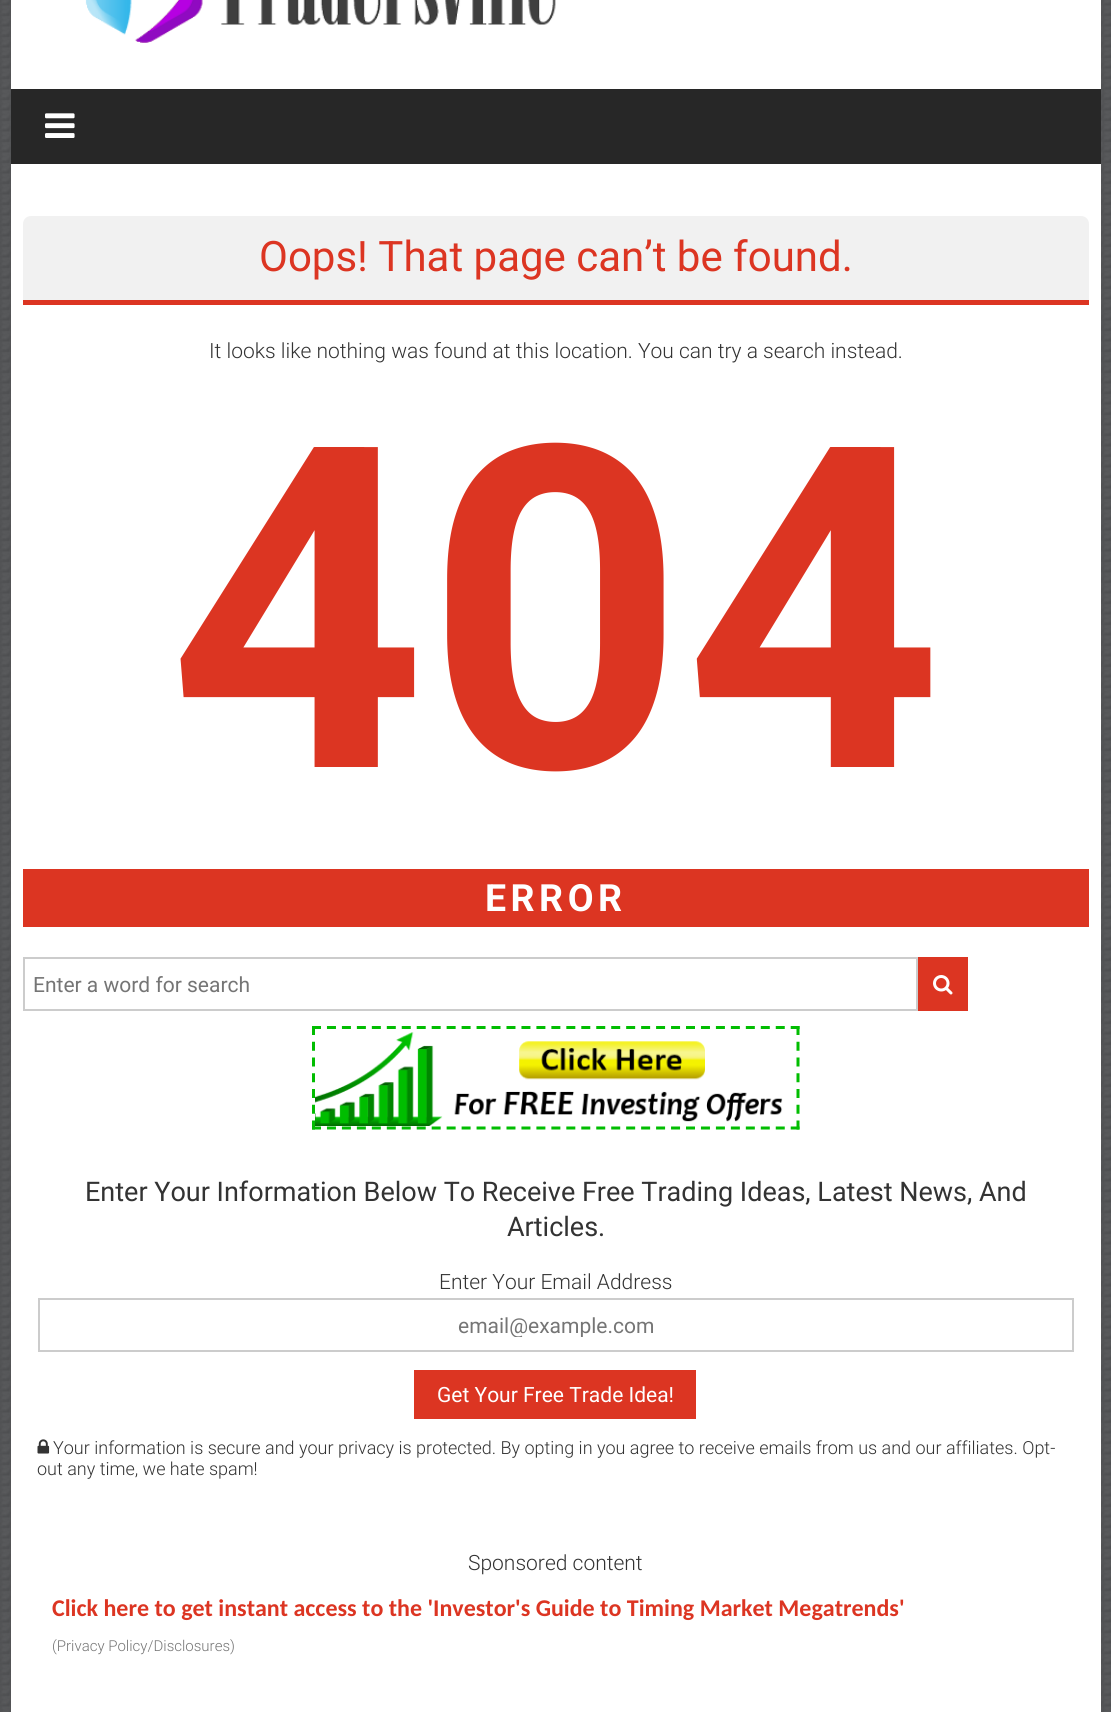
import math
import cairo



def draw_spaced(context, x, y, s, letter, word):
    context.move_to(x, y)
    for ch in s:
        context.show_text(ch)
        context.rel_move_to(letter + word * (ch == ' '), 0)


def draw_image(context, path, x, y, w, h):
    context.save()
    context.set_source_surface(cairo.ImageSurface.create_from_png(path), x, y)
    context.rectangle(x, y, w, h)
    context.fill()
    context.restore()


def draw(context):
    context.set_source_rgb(1, 1, 1)
    context.paint()
    draw_image(context, "images/1.png", 0, 0, 1111, 1712)
    context.set_source_rgb(1, 1, 1)
    context.rectangle(11, 0, 1090, 1712)
    context.fill()
    draw_image(context, "images/2.png", 85, 0, 471, 43)
    context.set_source_rgb(39 / 255, 39 / 255, 39 / 255)
    context.rectangle(11, 89, 1090, 75)
    context.fill()
    draw_image(context, "images/3.png", 45, 113, 30, 25)
    context.set_source_rgb(241 / 255, 241 / 255, 241 / 255)
    context.new_path()
    context.move_to(31, 216)
    context.line_to(1081, 216)
    context.curve_to(1085.5, 216, 1089, 219.5, 1089, 224)
    context.line_to(1089, 305)
    context.line_to(23, 305)
    context.line_to(23, 224)
    context.curve_to(23, 219.5, 26.5, 216, 31, 216)
    context.close_path()
    context.fill()
    context.set_source_rgb(220 / 255, 53 / 255, 34 / 255)
    context.rectangle(23, 300, 1066, 5)
    context.fill()
    context.rectangle(23, 869, 1066, 58)
    context.fill()
    context.rectangle(24, 958, 893, 52)
    context.set_source_rgb(204 / 255, 204 / 255, 204 / 255)
    context.stroke()
    context.set_source_rgb(220 / 255, 53 / 255, 34 / 255)
    context.rectangle(918, 957, 50, 54)
    context.fill()
    draw_image(context, "images/4.png", 933, 975, 20, 20)
    context.new_path()
    context.move_to(312, 1027.5)
    context.line_to(799.5, 1027.5)
    context.set_source_rgb(1 / 255, 189 / 255, 1 / 255)
    context.set_line_width(3)
    context.set_dash([9, 5.96])
    context.stroke()
    context.new_path()
    context.move_to(798, 1026)
    context.line_to(798, 1129.5)
    context.set_dash([9, 6.75])
    context.stroke()
    context.new_path()
    context.move_to(312, 1128)
    context.line_to(799.5, 1128)
    context.set_dash([9, 5.96])
    context.stroke()
    context.new_path()
    context.move_to(313.5, 1026)
    context.line_to(313.5, 1129.5)
    context.set_dash([9, 6.75])
    context.stroke()
    draw_image(context, "images/5.png", 315, 1032, 468, 94)
    context.rectangle(39, 1299, 1034, 52)
    context.set_source_rgb(204 / 255, 204 / 255, 204 / 255)
    context.set_line_width(2)
    context.set_dash([])
    context.stroke()
    context.set_source_rgb(220 / 255, 53 / 255, 34 / 255)
    context.rectangle(414, 1370, 282, 49)
    context.fill()
    draw_image(context, "images/6.png", 37, 1439, 13, 15)
    context.select_font_face("Roboto")
    context.set_font_size(42)
    context.move_to(259, 271)
    context.show_text("Oops! That page can’t be found.")
    context.select_font_face("Roboto Light")
    context.set_font_size(21)
    context.set_source_rgb(51 / 255, 51 / 255, 51 / 255)
    context.move_to(209, 358)
    context.show_text("It looks like nothing was found at this location. You can try a search instead.")
    context.select_font_face("Roboto", cairo.FontSlant.NORMAL, cairo.FontWeight.BOLD)
    context.set_font_size(450)
    context.set_source_rgb(220 / 255, 53 / 255, 34 / 255)
    context.move_to(168, 767)
    context.show_text("404")
    context.set_font_size(37.5)
    context.set_source_rgb(1, 1, 1)
    draw_spaced(context, 485, 911, "ERROR", 4.5, 0)
    context.select_font_face("Roboto")
    context.set_font_size(21)
    context.set_source_rgb(117 / 255, 117 / 255, 117 / 255)
    context.move_to(33, 992)
    context.show_text("Enter a word for search")
    context.set_font_size(27)
    context.set_source_rgb(51 / 255, 51 / 255, 51 / 255)
    context.move_to(85, 1201)
    context.show_text("Enter Your Information Below To Receive Free Trading Ideas, Latest News, And")
    context.move_to(507, 1236)
    context.show_text("Articles.")
    context.select_font_face("Roboto Light")
    context.set_font_size(21)
    context.move_to(439, 1289)
    context.show_text("Enter Your Email Address")
    context.save()
    context.rectangle(48, 1313, 1016, 24)
    context.clip()
    context.select_font_face("Roboto")
    context.set_source_rgb(117 / 255, 117 / 255, 117 / 255)
    context.move_to(458, 1333)
    context.show_text("email@example.com")
    context.restore()
    context.select_font_face("Roboto")
    context.set_source_rgb(1, 1, 1)
    context.move_to(437, 1402)
    context.show_text("Get Your Free Trade Idea!")
    context.select_font_face("Roboto Light")
    context.set_font_size(18)
    context.set_source_rgb(51 / 255, 51 / 255, 51 / 255)
    context.move_to(53, 1454)
    context.show_text("Your information is secure and your privacy is protected. By opting in you agree to receive emails from us and our affiliates. Opt-")
    context.move_to(37, 1475)
    context.show_text("out any time, we hate spam!")
    context.set_font_size(21)
    context.move_to(468, 1570)
    context.show_text("Sponsored content")
    context.select_font_face("Carlito", cairo.FontSlant.NORMAL, cairo.FontWeight.BOLD)
    context.set_font_size(24)
    context.set_source_rgb(220 / 255, 53 / 255, 34 / 255)
    context.move_to(52, 1616)
    context.show_text("Click here to get instant access to the 'Investor's Guide to Timing Market Megatrends'")
    context.select_font_face("Roboto Light")
    context.set_font_size(15)
    context.set_source_rgb(117 / 255, 117 / 255, 117 / 255)
    context.move_to(52, 1651)
    context.show_text("(Privacy Policy/Disclosures)")


surface = cairo.ImageSurface(cairo.Format.RGB24, 1111, 1712)
context = cairo.Context(surface)
options = cairo.FontOptions()
options.set_hint_metrics(cairo.HintMetrics.OFF)
options.set_hint_style(cairo.HintStyle.NONE)
context.set_font_options(options)
context.set_miter_limit(4)
draw(context)
surface.write_to_png("out.png")
